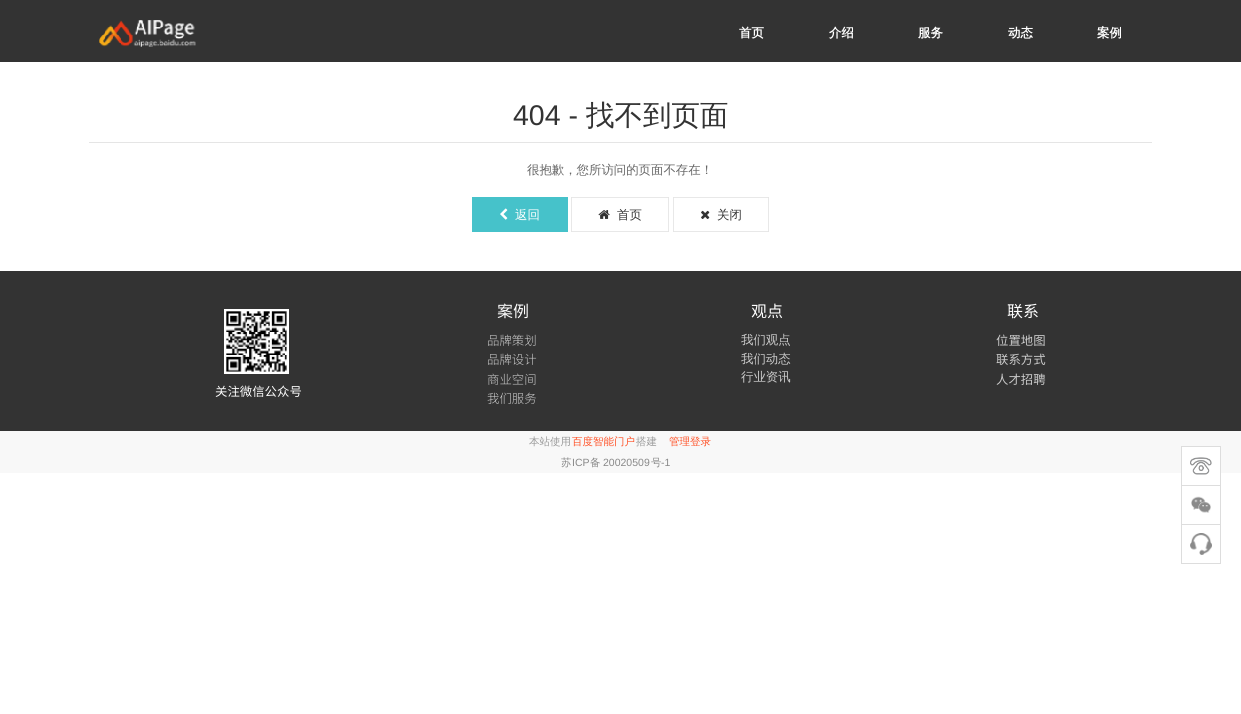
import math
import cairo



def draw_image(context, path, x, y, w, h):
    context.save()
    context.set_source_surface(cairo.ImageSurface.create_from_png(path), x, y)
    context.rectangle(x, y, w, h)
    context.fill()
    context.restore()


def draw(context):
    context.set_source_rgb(1, 1, 1)
    context.paint()
    context.set_source_rgb(51 / 255, 51 / 255, 51 / 255)
    context.rectangle(0, 0, 1241, 62)
    context.fill()
    draw_image(context, "images/1.png", 99, 20, 97, 27)
    context.set_source_rgb(229 / 255, 229 / 255, 229 / 255)
    context.rectangle(89, 142, 1063, 1)
    context.fill()
    context.set_source_rgb(70 / 255, 194 / 255, 202 / 255)
    context.rectangle(472, 197, 96, 35)
    context.fill()
    draw_image(context, "images/2.png", 500, 208, 8, 12)
    context.rectangle(571.45, 197.45, 97.1, 34.1)
    context.set_source_rgb(229 / 255, 229 / 255, 229 / 255)
    context.set_line_width(0.9)
    context.stroke()
    draw_image(context, "images/3.png", 598, 210, 12, 9)
    context.rectangle(673.45, 197.45, 95.1, 34.1)
    context.stroke()
    draw_image(context, "images/4.png", 701, 210, 9, 9)
    context.set_source_rgb(51 / 255, 51 / 255, 51 / 255)
    context.rectangle(0, 271, 1241, 160)
    context.fill()
    draw_image(context, "images/5.png", 224, 309, 65, 65)
    context.set_source_rgb(248 / 255, 248 / 255, 248 / 255)
    context.rectangle(0, 431, 1241, 42)
    context.fill()
    context.set_source_rgb(1, 1, 1)
    context.rectangle(1182, 447, 38, 26)
    context.fill()
    context.rectangle(1181.5, 446.5, 39, 39)
    context.set_source_rgb(221 / 255, 221 / 255, 221 / 255)
    context.set_line_width(1)
    context.stroke()
    draw_image(context, "images/6.png", 1190, 457, 22, 18)
    context.rectangle(1181.5, 485.5, 39, 39)
    context.stroke()
    draw_image(context, "images/7.png", 1191, 496, 20, 17)
    context.rectangle(1181.5, 524.5, 39, 39)
    context.stroke()
    draw_image(context, "images/8.png", 1190, 533, 22, 22)
    context.select_font_face("WenQuanYi Zen Hei", cairo.FontSlant.NORMAL, cairo.FontWeight.BOLD)
    context.set_font_size(12.4)
    context.set_source_rgb(1, 1, 1)
    context.move_to(739, 37)
    context.show_text("首页")
    context.move_to(829, 37)
    context.show_text("介绍")
    context.move_to(918, 37)
    context.show_text("服务")
    context.move_to(1008, 37)
    context.show_text("动态")
    context.move_to(1097, 37)
    context.show_text("案例")
    context.select_font_face("Liberation Sans")
    context.set_font_size(28.5)
    context.set_source_rgb(51 / 255, 51 / 255, 51 / 255)
    context.move_to(513, 125)
    context.show_text("404 -")
    context.select_font_face("WenQuanYi Zen Hei Medium")
    context.move_to(586, 125)
    context.show_text("找不到页面")
    context.set_font_size(12.4)
    context.set_source_rgb(102 / 255, 102 / 255, 102 / 255)
    context.move_to(527, 174)
    context.show_text("很抱歉，您所访问的页面不存在！")
    context.set_source_rgb(1, 1, 1)
    context.move_to(515, 219)
    context.show_text("返回")
    context.set_source_rgb(51 / 255, 51 / 255, 51 / 255)
    context.move_to(617, 219)
    context.show_text("首页")
    context.move_to(717, 219)
    context.show_text("关闭")
    context.select_font_face("Noto Sans SC")
    context.set_font_size(16)
    context.set_source_rgb(1, 1, 1)
    context.move_to(497, 317)
    context.show_text("案例")
    context.move_to(751, 317)
    context.show_text("观点")
    context.move_to(1007, 317)
    context.show_text("联系")
    context.select_font_face("Noto Sans SC Light")
    context.set_font_size(12.4)
    context.set_source_rgb(204 / 255, 204 / 255, 204 / 255)
    context.move_to(487, 345)
    context.show_text("品牌策划")
    context.move_to(487, 364)
    context.show_text("品牌设计")
    context.move_to(487, 384)
    context.show_text("商业空间")
    context.move_to(487, 403)
    context.show_text("我们服务")
    context.select_font_face("WenQuanYi Zen Hei Medium")
    context.move_to(741, 344)
    context.show_text("我们观点")
    context.move_to(741, 363)
    context.show_text("我们动态")
    context.move_to(741, 381)
    context.show_text("行业资讯")
    context.select_font_face("Noto Sans SC")
    context.move_to(996, 345)
    context.show_text("位置地图")
    context.move_to(996, 364)
    context.show_text("联系方式")
    context.move_to(996, 384)
    context.show_text("人才招聘")
    context.set_source_rgb(1, 1, 1)
    context.move_to(215, 396)
    context.show_text("关注微信公众号")
    context.select_font_face("WenQuanYi Zen Hei Medium")
    context.set_font_size(10.5)
    context.set_source_rgb(153 / 255, 153 / 255, 153 / 255)
    context.move_to(529, 445)
    context.show_text("本站使用")
    context.set_source_rgb(1, 81 / 255, 38 / 255)
    context.move_to(572, 445)
    context.show_text("百度智能门户")
    context.set_source_rgb(153 / 255, 153 / 255, 153 / 255)
    context.move_to(636, 445)
    context.show_text("搭建")
    context.set_source_rgb(1, 81 / 255, 38 / 255)
    context.move_to(669, 445)
    context.show_text("管理登录")
    context.set_source_rgb(136 / 255, 136 / 255, 136 / 255)
    context.move_to(561, 466)
    context.show_text("苏")
    context.select_font_face("Liberation Sans")
    context.move_to(572, 466)
    context.show_text("ICP")
    context.select_font_face("WenQuanYi Zen Hei Medium")
    context.move_to(590, 466)
    context.show_text("备")
    context.select_font_face("Liberation Sans")
    context.move_to(603, 466)
    context.show_text("20020509")
    context.select_font_face("WenQuanYi Zen Hei Medium")
    context.move_to(651, 466)
    context.show_text("号")
    context.select_font_face("Liberation Sans")
    context.move_to(661, 466)
    context.show_text("-1")


surface = cairo.ImageSurface(cairo.Format.RGB24, 1241, 714)
context = cairo.Context(surface)
options = cairo.FontOptions()
options.set_hint_metrics(cairo.HintMetrics.OFF)
options.set_hint_style(cairo.HintStyle.NONE)
context.set_font_options(options)
context.set_miter_limit(4)
draw(context)
surface.write_to_png("out.png")
